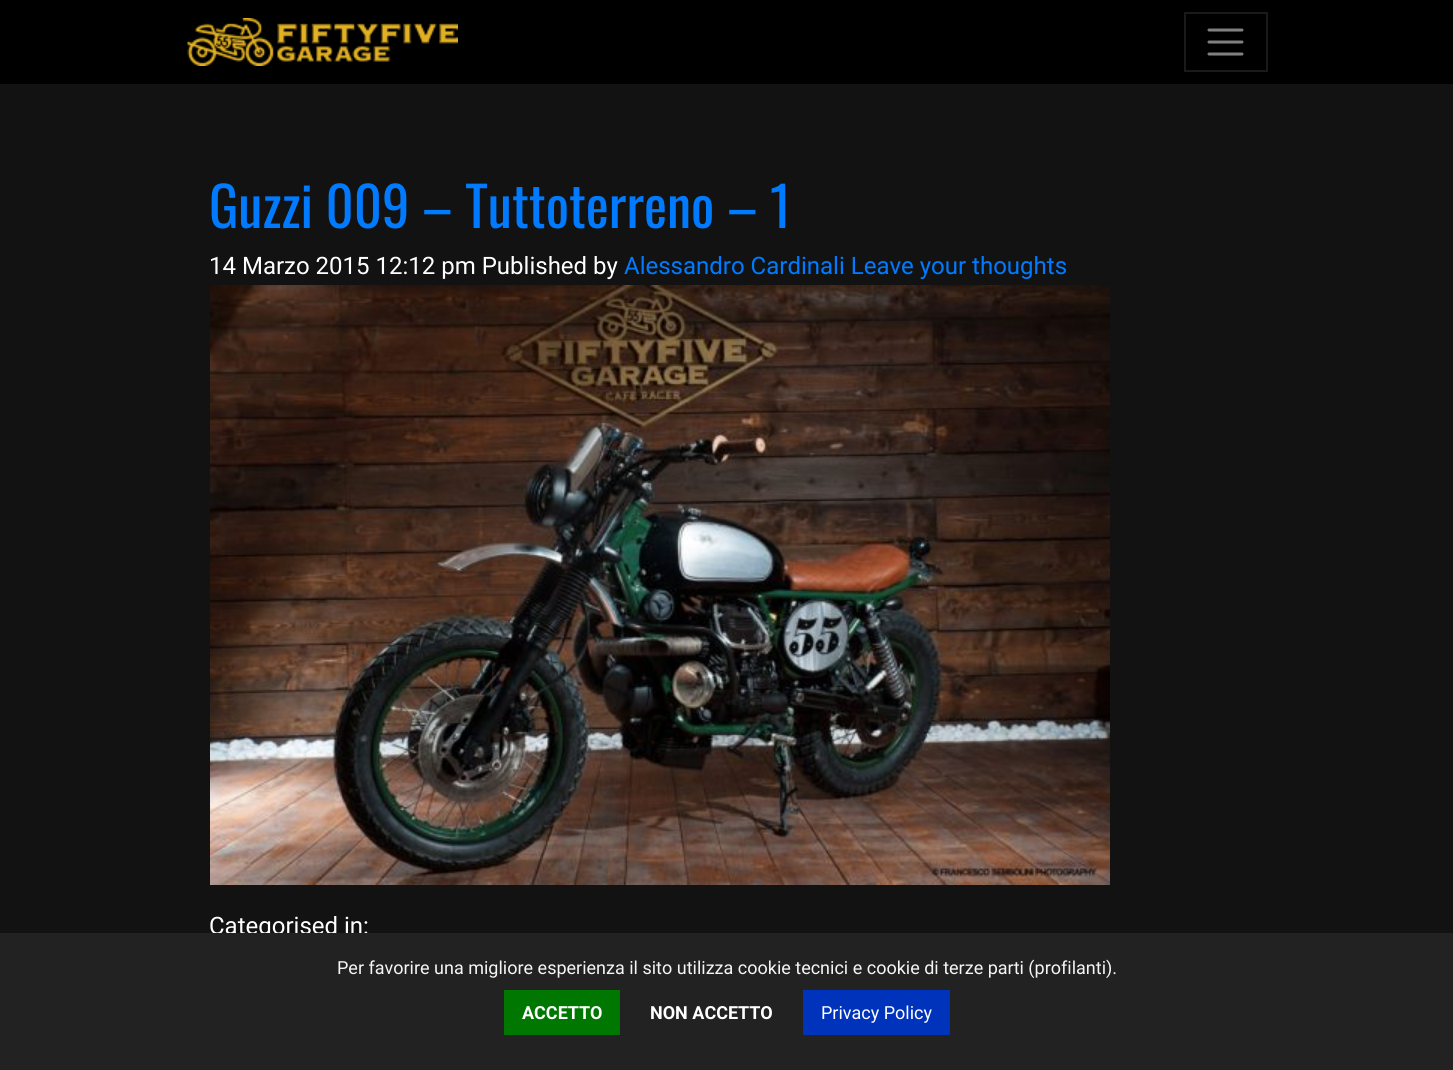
import math
import cairo



def draw_image(context, path, x, y, w, h):
    context.save()
    context.set_source_surface(cairo.ImageSurface.create_from_png(path), x, y)
    context.rectangle(x, y, w, h)
    context.fill()
    context.restore()


def draw(context):
    context.set_source_rgb(18 / 255, 18 / 255, 18 / 255)
    context.paint()
    context.set_source_rgb(0, 0, 0)
    context.rectangle(0, 0, 1453, 84)
    context.fill()
    draw_image(context, "images/1.png", 187, 18, 271, 48)
    context.rectangle(1185, 13, 82, 58)
    context.set_source_rgb(26 / 255, 26 / 255, 26 / 255)
    context.stroke()
    context.new_path()
    context.move_to(1209, 30)
    context.line_to(1242, 30)
    context.move_to(1209, 42)
    context.line_to(1242, 42)
    context.move_to(1209, 54)
    context.line_to(1242, 54)
    context.set_source_rgb(128 / 255, 128 / 255, 128 / 255)
    context.set_line_width(3)
    context.set_line_cap(cairo.LineCap.ROUND)
    context.stroke()
    draw_image(context, "images/2.png", 210, 285, 900, 600)
    context.select_font_face("Oswald")
    context.set_font_size(54.75)
    context.set_source_rgb(0, 123 / 255, 1)
    context.move_to(209, 228)
    context.show_text("Guzzi 009 – Tuttoterreno – 1")
    context.select_font_face("Roboto")
    context.set_font_size(24)
    context.set_source_rgb(1, 1, 1)
    context.move_to(209, 274)
    context.show_text("14 Marzo 2015 12:12 pm Published by")
    context.set_source_rgb(0, 123 / 255, 1)
    context.move_to(624, 274)
    context.show_text("Alessandro Cardinali Leave your thoughts")
    context.set_source_rgb(1, 1, 1)
    context.move_to(209, 934)
    context.show_text("Categorised in:")
    context.set_source_rgb(34 / 255, 34 / 255, 34 / 255)
    context.rectangle(0, 933, 1453, 137)
    context.fill()
    context.set_font_size(18)
    context.set_source_rgb(245 / 255, 245 / 255, 245 / 255)
    context.move_to(337, 974)
    context.show_text("Per favorire una migliore esperienza il sito utilizza cookie tecnici e cookie di terze parti (profilanti).")
    context.set_source_rgb(0, 119 / 255, 0)
    context.rectangle(504, 990, 116, 45)
    context.fill()
    context.select_font_face("Roboto", cairo.FontSlant.NORMAL, cairo.FontWeight.BOLD)
    context.set_source_rgb(1, 1, 1)
    context.move_to(522, 1019)
    context.show_text("ACCETTO")
    context.move_to(650, 1019)
    context.show_text("NON ACCETTO")
    context.set_source_rgb(0, 51 / 255, 187 / 255)
    context.rectangle(803, 990, 147, 45)
    context.fill()
    context.select_font_face("Roboto")
    context.set_source_rgb(1, 1, 1)
    context.move_to(821, 1019)
    context.show_text("Privacy Policy")


surface = cairo.ImageSurface(cairo.Format.RGB24, 1453, 1070)
context = cairo.Context(surface)
options = cairo.FontOptions()
options.set_hint_metrics(cairo.HintMetrics.OFF)
options.set_hint_style(cairo.HintStyle.NONE)
context.set_font_options(options)
context.set_miter_limit(4)
draw(context)
surface.write_to_png("out.png")
